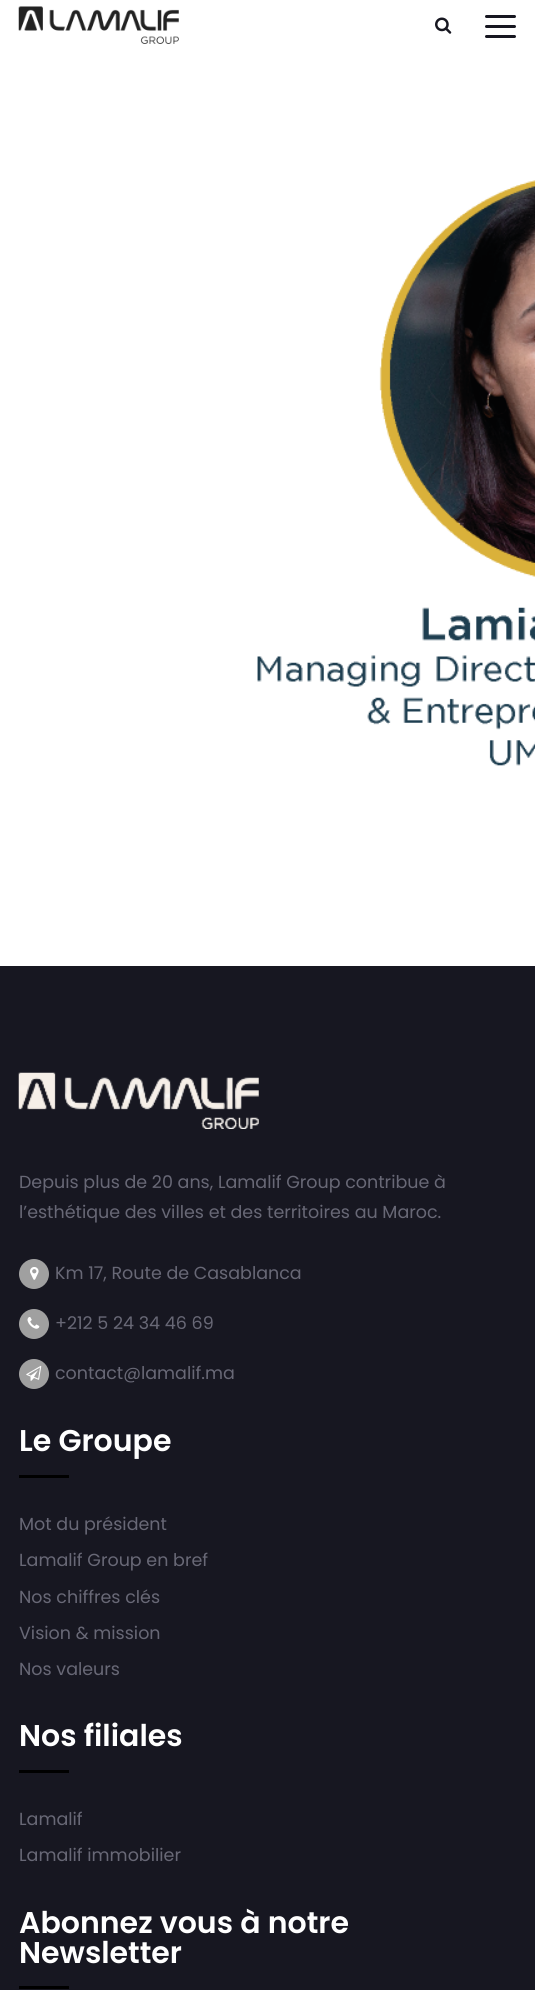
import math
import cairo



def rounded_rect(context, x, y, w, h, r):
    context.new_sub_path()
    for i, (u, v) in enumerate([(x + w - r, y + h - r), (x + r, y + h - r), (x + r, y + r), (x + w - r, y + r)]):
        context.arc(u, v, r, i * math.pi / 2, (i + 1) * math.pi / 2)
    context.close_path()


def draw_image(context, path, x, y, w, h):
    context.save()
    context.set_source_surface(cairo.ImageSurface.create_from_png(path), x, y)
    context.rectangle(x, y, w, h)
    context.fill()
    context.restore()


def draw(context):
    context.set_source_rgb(1, 1, 1)
    context.paint()
    draw_image(context, "images/1.png", 18, 6, 161, 38)
    draw_image(context, "images/2.png", 435, 17, 17, 17)
    context.set_source_rgb(23 / 255, 23 / 255, 33 / 255)
    rounded_rect(context, 485, 15, 31, 3, 1.5)
    context.fill()
    rounded_rect(context, 485, 25, 31, 3, 1.5)
    context.fill()
    rounded_rect(context, 485, 35, 31, 3, 1.5)
    context.fill()
    draw_image(context, "images/3.png", 257, 180, 278, 586)
    context.rectangle(0, 966, 535, 1024)
    context.fill()
    draw_image(context, "images/4.png", 18, 1072, 241, 57)
    context.set_source_rgb(160 / 255, 160 / 255, 160 / 255)
    context.arc(34, 1274, 15, 0, 2 * math.pi)
    context.fill()
    draw_image(context, "images/5.png", 30, 1267, 9, 13)
    context.arc(34, 1324, 15, 0, 2 * math.pi)
    context.fill()
    draw_image(context, "images/6.png", 27, 1317, 13, 12)
    context.arc(34, 1374, 15, 0, 2 * math.pi)
    context.fill()
    draw_image(context, "images/7.png", 26, 1365, 16, 16)
    context.set_source_rgb(0, 0, 0)
    context.rectangle(19, 1475, 50, 3)
    context.fill()
    context.rectangle(19, 1770, 50, 3)
    context.fill()
    context.rectangle(19, 1986, 50, 3)
    context.fill()
    context.select_font_face("Poppins")
    context.set_font_size(17.5)
    context.set_source_rgb(104 / 255, 104 / 255, 118 / 255)
    context.move_to(19, 1188)
    context.show_text("Depuis plus de 20 ans, Lamalif Group contribue à")
    context.move_to(19, 1218)
    context.show_text("l’esthétique des villes et des territoires au Maroc.")
    context.move_to(55, 1279)
    context.show_text("Km 17, Route de Casablanca")
    context.move_to(55, 1329)
    context.show_text("+212 5 24 34 46 69")
    context.move_to(55, 1379)
    context.show_text("contact@lamalif.ma")
    context.select_font_face("Poppins SemiBold")
    context.set_font_size(30)
    context.set_source_rgb(1, 1, 1)
    context.move_to(19, 1451)
    context.show_text("Le Groupe")
    context.select_font_face("Poppins")
    context.set_font_size(17.5)
    context.set_source_rgb(104 / 255, 104 / 255, 118 / 255)
    context.move_to(19, 1530)
    context.show_text("Mot du président")
    context.move_to(19, 1566)
    context.show_text("Lamalif Group en bref")
    context.move_to(19, 1603)
    context.show_text("Nos chiffres clés")
    context.move_to(19, 1639)
    context.show_text("Vision & mission")
    context.move_to(19, 1675)
    context.show_text("Nos valeurs")
    context.select_font_face("Poppins SemiBold")
    context.set_font_size(30)
    context.set_source_rgb(1, 1, 1)
    context.move_to(19, 1746)
    context.show_text("Nos filiales")
    context.select_font_face("Poppins")
    context.set_font_size(17.5)
    context.set_source_rgb(104 / 255, 104 / 255, 118 / 255)
    context.move_to(19, 1825)
    context.show_text("Lamalif")
    context.move_to(19, 1861)
    context.show_text("Lamalif immobilier")
    context.select_font_face("Poppins SemiBold")
    context.set_font_size(30)
    context.set_source_rgb(1, 1, 1)
    context.move_to(19, 1933)
    context.show_text("Abonnez vous à notre")
    context.move_to(19, 1963)
    context.show_text("Newsletter")


surface = cairo.ImageSurface(cairo.Format.RGB24, 535, 1990)
context = cairo.Context(surface)
options = cairo.FontOptions()
options.set_hint_metrics(cairo.HintMetrics.OFF)
options.set_hint_style(cairo.HintStyle.NONE)
context.set_font_options(options)
context.set_miter_limit(4)
draw(context)
surface.write_to_png("out.png")
